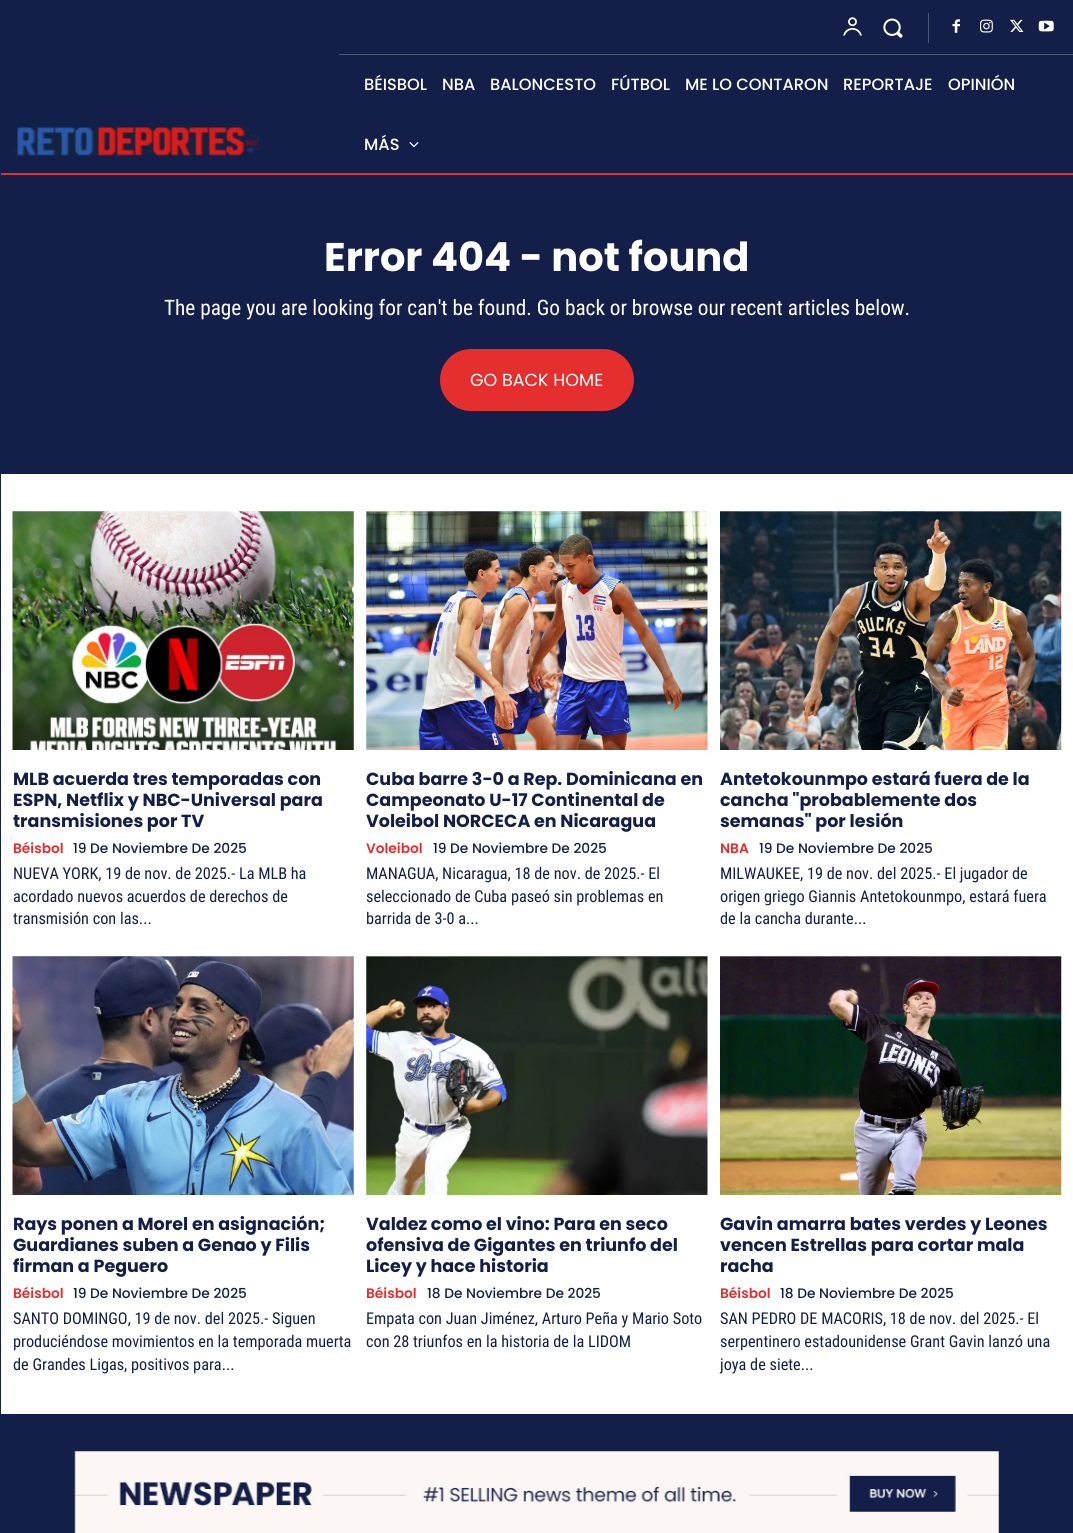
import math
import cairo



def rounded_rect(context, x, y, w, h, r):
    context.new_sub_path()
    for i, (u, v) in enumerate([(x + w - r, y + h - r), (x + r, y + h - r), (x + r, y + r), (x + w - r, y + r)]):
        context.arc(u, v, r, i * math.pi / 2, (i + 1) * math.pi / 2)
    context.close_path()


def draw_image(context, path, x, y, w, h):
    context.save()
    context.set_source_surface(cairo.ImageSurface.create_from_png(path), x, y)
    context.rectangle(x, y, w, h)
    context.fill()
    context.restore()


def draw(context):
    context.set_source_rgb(19 / 255, 31 / 255, 73 / 255)
    context.paint()
    draw_image(context, "images/1.png", 12, 127, 251, 29)
    draw_image(context, "images/2.png", 843, 17, 19, 19)
    draw_image(context, "images/3.png", 883, 18, 20, 20)
    context.set_source_rgb(78 / 255, 87 / 255, 119 / 255)
    context.rectangle(928, 13, 1, 30)
    context.fill()
    draw_image(context, "images/4.png", 952, 19, 8, 14)
    draw_image(context, "images/5.png", 980, 19, 13, 14)
    draw_image(context, "images/6.png", 1010, 19, 14, 13)
    draw_image(context, "images/7.png", 1038, 20, 16, 12)
    context.rectangle(339, 54, 734, 1)
    context.fill()
    draw_image(context, "images/8.png", 409, 142, 10, 6)
    context.set_source_rgb(229 / 255, 46 / 255, 46 / 255)
    context.rectangle(1, 173, 1072, 2)
    context.fill()
    rounded_rect(context, 440, 349, 194, 62, 31)
    context.fill()
    context.set_source_rgb(1, 1, 1)
    context.rectangle(1, 474, 1072, 940)
    context.fill()
    draw_image(context, "images/9.png", 12, 511, 342, 239)
    draw_image(context, "images/10.png", 366, 511, 342, 239)
    draw_image(context, "images/11.png", 720, 511, 342, 239)
    draw_image(context, "images/12.png", 12, 956, 342, 239)
    draw_image(context, "images/13.png", 366, 956, 342, 239)
    draw_image(context, "images/14.png", 720, 956, 342, 239)
    draw_image(context, "images/15.png", 74, 1451, 925, 82)
    context.select_font_face("Poppins Medium")
    context.set_font_size(16.25)
    context.move_to(364, 90)
    context.show_text("BÉISBOL")
    context.move_to(442, 90)
    context.show_text("NBA")
    context.move_to(490, 90)
    context.show_text("BALONCESTO")
    context.move_to(611, 90)
    context.show_text("FÚTBOL")
    context.move_to(685, 90)
    context.show_text("ME LO CONTARON")
    context.move_to(843, 90)
    context.show_text("REPORTAJE")
    context.move_to(948, 90)
    context.show_text("OPINIÓN")
    context.move_to(364, 150)
    context.show_text("MÁS")
    context.select_font_face("Poppins", cairo.FontSlant.NORMAL, cairo.FontWeight.BOLD)
    context.set_font_size(40)
    context.move_to(324, 271)
    context.show_text("Error 404 - not found")
    context.select_font_face("Roboto Condensed")
    context.set_font_size(21.25)
    context.move_to(164, 315)
    context.show_text("The page you are looking for can't be found. Go back or browse our recent articles below.")
    context.select_font_face("Poppins")
    context.set_font_size(17.5)
    context.move_to(470, 386)
    context.show_text("GO BACK HOME")
    context.select_font_face("Poppins", cairo.FontSlant.NORMAL, cairo.FontWeight.BOLD)
    context.set_source_rgb(19 / 255, 31 / 255, 73 / 255)
    context.move_to(13, 785)
    context.show_text("MLB acuerda tres temporadas con")
    context.move_to(13, 806)
    context.show_text("ESPN, Netflix y NBC-Universal para")
    context.move_to(13, 827)
    context.show_text("transmisiones por TV")
    context.select_font_face("Poppins SemiBold")
    context.set_font_size(13.75)
    context.set_source_rgb(229 / 255, 46 / 255, 46 / 255)
    context.move_to(13, 853)
    context.show_text("Béisbol")
    context.select_font_face("Poppins Medium")
    context.set_source_rgb(19 / 255, 31 / 255, 73 / 255)
    context.move_to(73, 853)
    context.show_text("19 De Noviembre De 2025")
    context.select_font_face("Roboto Condensed")
    context.set_font_size(16.25)
    context.move_to(13, 879)
    context.show_text("NUEVA YORK, 19 de nov. de 2025.- La MLB ha")
    context.move_to(13, 902)
    context.show_text("acordado nuevos acuerdos de derechos de")
    context.move_to(13, 924)
    context.show_text("transmisión con las...")
    context.select_font_face("Poppins", cairo.FontSlant.NORMAL, cairo.FontWeight.BOLD)
    context.set_font_size(17.5)
    context.move_to(366, 785)
    context.show_text("Cuba barre 3-0 a Rep. Dominicana en")
    context.move_to(366, 806)
    context.show_text("Campeonato U-17 Continental de")
    context.move_to(366, 827)
    context.show_text("Voleibol NORCECA en Nicaragua")
    context.select_font_face("Poppins SemiBold")
    context.set_font_size(13.75)
    context.set_source_rgb(229 / 255, 46 / 255, 46 / 255)
    context.move_to(366, 853)
    context.show_text("Voleibol")
    context.select_font_face("Poppins Medium")
    context.set_source_rgb(19 / 255, 31 / 255, 73 / 255)
    context.move_to(433, 853)
    context.show_text("19 De Noviembre De 2025")
    context.select_font_face("Roboto Condensed")
    context.set_font_size(16.25)
    context.move_to(366, 879)
    context.show_text("MANAGUA, Nicaragua, 18 de nov. de 2025.- El")
    context.move_to(366, 902)
    context.show_text("seleccionado de Cuba paseó sin problemas en")
    context.move_to(366, 924)
    context.show_text("barrida de 3-0 a...")
    context.select_font_face("Poppins", cairo.FontSlant.NORMAL, cairo.FontWeight.BOLD)
    context.set_font_size(17.5)
    context.move_to(720, 785)
    context.show_text("Antetokounmpo estará fuera de la")
    context.move_to(720, 806)
    context.show_text("cancha \"probablemente dos")
    context.move_to(720, 827)
    context.show_text("semanas\" por lesión")
    context.select_font_face("Poppins SemiBold")
    context.set_font_size(13.75)
    context.set_source_rgb(229 / 255, 46 / 255, 46 / 255)
    context.move_to(720, 853)
    context.show_text("NBA")
    context.select_font_face("Poppins Medium")
    context.set_source_rgb(19 / 255, 31 / 255, 73 / 255)
    context.move_to(759, 853)
    context.show_text("19 De Noviembre De 2025")
    context.select_font_face("Roboto Condensed")
    context.set_font_size(16.25)
    context.move_to(720, 879)
    context.show_text("MILWAUKEE, 19 de nov. del 2025.- El jugador de")
    context.move_to(720, 902)
    context.show_text("origen griego Giannis Antetokounmpo, estará fuera")
    context.move_to(720, 924)
    context.show_text("de la cancha durante...")
    context.select_font_face("Poppins", cairo.FontSlant.NORMAL, cairo.FontWeight.BOLD)
    context.set_font_size(17.5)
    context.move_to(13, 1230)
    context.show_text("Rays ponen a Morel en asignación;")
    context.move_to(13, 1251)
    context.show_text("Guardianes suben a Genao y Filis")
    context.move_to(13, 1272)
    context.show_text("firman a Peguero")
    context.select_font_face("Poppins SemiBold")
    context.set_font_size(13.75)
    context.set_source_rgb(229 / 255, 46 / 255, 46 / 255)
    context.move_to(13, 1298)
    context.show_text("Béisbol")
    context.select_font_face("Poppins Medium")
    context.set_source_rgb(19 / 255, 31 / 255, 73 / 255)
    context.move_to(73, 1298)
    context.show_text("19 De Noviembre De 2025")
    context.select_font_face("Roboto Condensed")
    context.set_font_size(16.25)
    context.move_to(13, 1324)
    context.show_text("SANTO DOMINGO, 19 de nov. del 2025.- Siguen")
    context.move_to(13, 1347)
    context.show_text("produciéndose movimientos en la temporada muerta")
    context.move_to(13, 1370)
    context.show_text("de Grandes Ligas, positivos para...")
    context.select_font_face("Poppins", cairo.FontSlant.NORMAL, cairo.FontWeight.BOLD)
    context.set_font_size(17.5)
    context.move_to(366, 1230)
    context.show_text("Valdez como el vino: Para en seco")
    context.move_to(366, 1251)
    context.show_text("ofensiva de Gigantes en triunfo del")
    context.move_to(366, 1272)
    context.show_text("Licey y hace historia")
    context.select_font_face("Poppins SemiBold")
    context.set_font_size(13.75)
    context.set_source_rgb(229 / 255, 46 / 255, 46 / 255)
    context.move_to(366, 1298)
    context.show_text("Béisbol")
    context.select_font_face("Poppins Medium")
    context.set_source_rgb(19 / 255, 31 / 255, 73 / 255)
    context.move_to(427, 1298)
    context.show_text("18 De Noviembre De 2025")
    context.select_font_face("Roboto Condensed")
    context.set_font_size(16.25)
    context.move_to(366, 1324)
    context.show_text("Empata con Juan Jiménez, Arturo Peña y Mario Soto")
    context.move_to(366, 1347)
    context.show_text("con 28 triunfos en la historia de la LIDOM")
    context.select_font_face("Poppins", cairo.FontSlant.NORMAL, cairo.FontWeight.BOLD)
    context.set_font_size(17.5)
    context.move_to(720, 1230)
    context.show_text("Gavin amarra bates verdes y Leones")
    context.move_to(720, 1251)
    context.show_text("vencen Estrellas para cortar mala")
    context.move_to(720, 1272)
    context.show_text("racha")
    context.select_font_face("Poppins SemiBold")
    context.set_font_size(13.75)
    context.set_source_rgb(229 / 255, 46 / 255, 46 / 255)
    context.move_to(720, 1298)
    context.show_text("Béisbol")
    context.select_font_face("Poppins Medium")
    context.set_source_rgb(19 / 255, 31 / 255, 73 / 255)
    context.move_to(780, 1298)
    context.show_text("18 De Noviembre De 2025")
    context.select_font_face("Roboto Condensed")
    context.set_font_size(16.25)
    context.move_to(720, 1324)
    context.show_text("SAN PEDRO DE MACORIS, 18 de nov. del 2025.- El")
    context.move_to(720, 1347)
    context.show_text("serpentinero estadounidense Grant Gavin lanzó una")
    context.move_to(720, 1370)
    context.show_text("joya de siete...")


surface = cairo.ImageSurface(cairo.Format.RGB24, 1073, 1533)
context = cairo.Context(surface)
options = cairo.FontOptions()
options.set_hint_metrics(cairo.HintMetrics.OFF)
options.set_hint_style(cairo.HintStyle.NONE)
context.set_font_options(options)
context.set_miter_limit(4)
draw(context)
surface.write_to_png("out.png")
